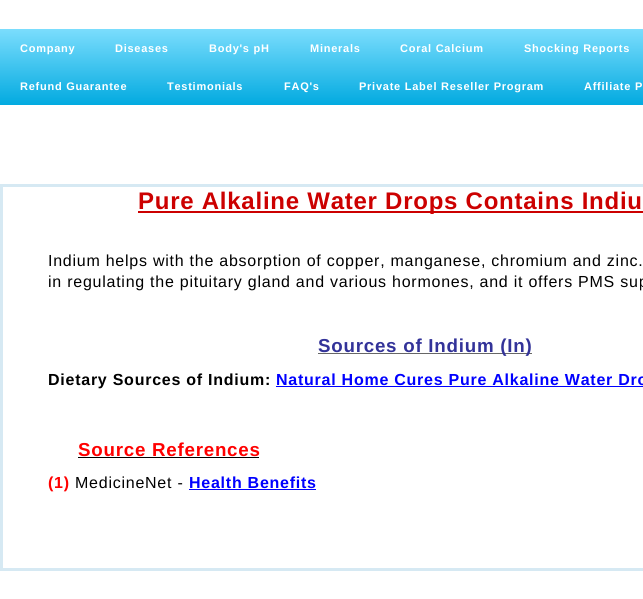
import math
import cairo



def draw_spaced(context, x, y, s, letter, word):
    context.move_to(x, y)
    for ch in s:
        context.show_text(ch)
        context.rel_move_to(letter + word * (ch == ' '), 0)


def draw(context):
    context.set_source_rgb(1, 1, 1)
    context.paint()
    gradient = cairo.LinearGradient(425, 29, 425, 105)
    gradient.add_color_stop_rgba(0, 123 / 255, 221 / 255, 253 / 255, 1)
    gradient.add_color_stop_rgba(1, 2 / 255, 170 / 255, 224 / 255, 1)
    context.set_source(gradient)
    context.rectangle(0, 29, 643, 76)
    context.fill()
    context.rectangle(1.5, 185.5, 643, 384)
    context.set_source_rgb(214 / 255, 233 / 255, 243 / 255)
    context.set_line_width(3)
    context.stroke()
    context.set_source_rgb(204 / 255, 0, 0)
    context.rectangle(138, 211, 505, 2)
    context.fill()
    context.set_source_rgb(102 / 255, 102 / 255, 102 / 255)
    context.rectangle(318, 353, 214, 1)
    context.fill()
    context.set_source_rgb(0, 0, 1)
    context.rectangle(276, 386, 367, 1)
    context.fill()
    context.set_source_rgb(0, 0, 0)
    context.rectangle(78, 457, 181, 1)
    context.fill()
    context.set_source_rgb(0, 0, 1)
    context.rectangle(189, 489, 127, 1)
    context.fill()
    context.select_font_face("Liberation Sans", cairo.FontSlant.NORMAL, cairo.FontWeight.BOLD)
    context.set_font_size(11)
    context.set_source_rgb(1, 1, 1)
    draw_spaced(context, 20, 52, "Company", 0.75, 0)
    draw_spaced(context, 115, 52, "Diseases", 0.75, 0)
    draw_spaced(context, 209, 52, "Body's pH", 0.75, 0)
    draw_spaced(context, 310, 52, "Minerals", 0.75, 0)
    draw_spaced(context, 400, 52, "Coral Calcium", 0.75, 0)
    draw_spaced(context, 524, 52, "Shocking Reports", 0.75, 0)
    draw_spaced(context, 20, 90, "Refund Guarantee", 0.75, 0)
    draw_spaced(context, 167, 90, "Testimonials", 0.75, 0)
    draw_spaced(context, 284, 90, "FAQ's", 0.75, 0)
    draw_spaced(context, 359, 90, "Private Label Reseller Program", 0.75, 0)
    draw_spaced(context, 584, 90, "Affiliate P", 0.75, 0)
    context.set_font_size(24)
    context.set_source_rgb(204 / 255, 0, 0)
    draw_spaced(context, 138, 209, "Pure Alkaline Water Drops Contains Indiu", 0.75, 0)
    context.select_font_face("Liberation Sans")
    context.set_font_size(16)
    context.set_source_rgb(0, 0, 0)
    draw_spaced(context, 48, 266, "Indium helps with the absorption of copper, manganese, chromium and zinc.", 0.75, 0)
    draw_spaced(context, 48, 287, "in regulating the pituitary gland and various hormones, and it offers PMS sup", 0.75, 0)
    context.select_font_face("Liberation Sans", cairo.FontSlant.NORMAL, cairo.FontWeight.BOLD)
    context.set_font_size(18.75)
    context.set_source_rgb(51 / 255, 51 / 255, 153 / 255)
    draw_spaced(context, 318, 352, "Sources of Indium (In)", 0.75, 0)
    context.set_font_size(16)
    context.set_source_rgb(0, 0, 0)
    draw_spaced(context, 48, 385, "Dietary Sources of Indium:", 0.75, 0)
    context.set_source_rgb(0, 0, 1)
    draw_spaced(context, 276, 385, "Natural Home Cures Pure Alkaline Water Dro", 0.75, 0)
    context.set_font_size(18.75)
    context.set_source_rgb(1, 0, 0)
    draw_spaced(context, 78, 456, "Source References", 0.75, 0)
    context.set_font_size(16)
    draw_spaced(context, 48, 488, "(1)", 0.75, 0)
    context.select_font_face("Liberation Sans")
    context.set_source_rgb(0, 0, 0)
    draw_spaced(context, 75, 488, "MedicineNet -", 0.75, 0)
    context.select_font_face("Liberation Sans", cairo.FontSlant.NORMAL, cairo.FontWeight.BOLD)
    context.set_source_rgb(0, 0, 1)
    draw_spaced(context, 189, 488, "Health Benefits", 0.75, 0)


surface = cairo.ImageSurface(cairo.Format.RGB24, 643, 599)
context = cairo.Context(surface)
options = cairo.FontOptions()
options.set_hint_metrics(cairo.HintMetrics.OFF)
options.set_hint_style(cairo.HintStyle.NONE)
context.set_font_options(options)
context.set_miter_limit(4)
draw(context)
surface.write_to_png("out.png")
